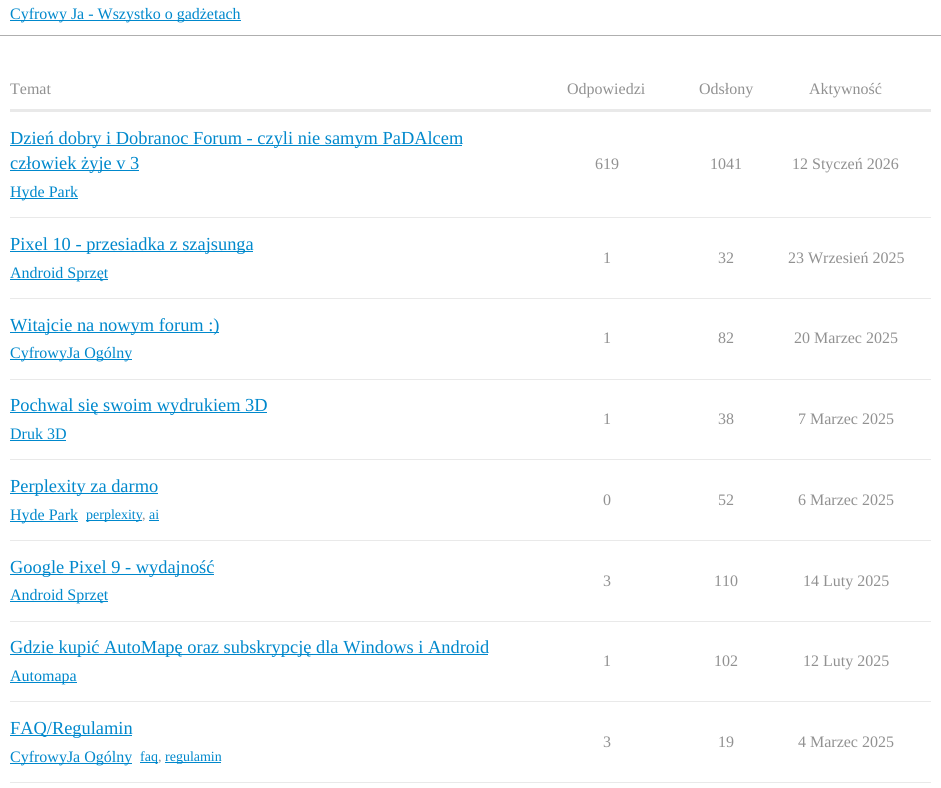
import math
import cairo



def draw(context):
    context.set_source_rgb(1, 1, 1)
    context.paint()
    context.set_source_rgb(175 / 255, 175 / 255, 175 / 255)
    context.rectangle(0, 35, 941, 1)
    context.fill()
    context.set_source_rgb(0, 136 / 255, 204 / 255)
    context.rectangle(10, 20, 231, 1)
    context.fill()
    context.set_source_rgb(233 / 255, 233 / 255, 233 / 255)
    context.rectangle(10, 109, 921, 3)
    context.fill()
    context.rectangle(10, 217, 921, 1)
    context.fill()
    context.set_source_rgb(0, 136 / 255, 204 / 255)
    context.rectangle(10, 145, 452, 1)
    context.fill()
    context.rectangle(10, 170, 129, 1)
    context.fill()
    context.rectangle(10, 198, 68, 1)
    context.fill()
    context.set_source_rgb(233 / 255, 233 / 255, 233 / 255)
    context.rectangle(10, 298, 921, 1)
    context.fill()
    context.set_source_rgb(0, 136 / 255, 204 / 255)
    context.rectangle(10, 251, 243, 1)
    context.fill()
    context.rectangle(10, 279, 98, 1)
    context.fill()
    context.set_source_rgb(233 / 255, 233 / 255, 233 / 255)
    context.rectangle(10, 379, 921, 1)
    context.fill()
    context.set_source_rgb(0, 136 / 255, 204 / 255)
    context.rectangle(10, 332, 209, 1)
    context.fill()
    context.rectangle(10, 359, 122, 1)
    context.fill()
    context.set_source_rgb(233 / 255, 233 / 255, 233 / 255)
    context.rectangle(10, 459, 921, 1)
    context.fill()
    context.set_source_rgb(0, 136 / 255, 204 / 255)
    context.rectangle(10, 412, 257, 1)
    context.fill()
    context.rectangle(10, 440, 56, 1)
    context.fill()
    context.set_source_rgb(233 / 255, 233 / 255, 233 / 255)
    context.rectangle(10, 540, 921, 1)
    context.fill()
    context.set_source_rgb(0, 136 / 255, 204 / 255)
    context.rectangle(10, 493, 148, 1)
    context.fill()
    context.rectangle(10, 521, 68, 1)
    context.fill()
    context.rectangle(86, 520, 56, 1)
    context.fill()
    context.rectangle(149, 520, 10, 1)
    context.fill()
    context.set_source_rgb(233 / 255, 233 / 255, 233 / 255)
    context.rectangle(10, 621, 921, 1)
    context.fill()
    context.set_source_rgb(0, 136 / 255, 204 / 255)
    context.rectangle(10, 574, 204, 1)
    context.fill()
    context.rectangle(10, 601, 98, 1)
    context.fill()
    context.set_source_rgb(233 / 255, 233 / 255, 233 / 255)
    context.rectangle(10, 701, 921, 1)
    context.fill()
    context.set_source_rgb(0, 136 / 255, 204 / 255)
    context.rectangle(10, 654, 478, 1)
    context.fill()
    context.rectangle(10, 682, 67, 1)
    context.fill()
    context.set_source_rgb(233 / 255, 233 / 255, 233 / 255)
    context.rectangle(10, 782, 921, 1)
    context.fill()
    context.set_source_rgb(0, 136 / 255, 204 / 255)
    context.rectangle(10, 735, 122, 1)
    context.fill()
    context.rectangle(10, 763, 122, 1)
    context.fill()
    context.rectangle(140, 762, 18, 1)
    context.fill()
    context.rectangle(165, 762, 56, 1)
    context.fill()
    context.select_font_face("Liberation Serif")
    context.set_font_size(16)
    context.move_to(10, 19)
    context.show_text("Cyfrowy Ja - Wszystko o gadżetach")
    context.set_source_rgb(145 / 255, 145 / 255, 145 / 255)
    context.move_to(10, 94)
    context.show_text("Temat")
    context.move_to(567, 94)
    context.show_text("Odpowiedzi")
    context.move_to(699, 94)
    context.show_text("Odsłony")
    context.move_to(809, 94)
    context.show_text("Aktywność")
    context.set_font_size(18.4)
    context.set_source_rgb(0, 136 / 255, 204 / 255)
    context.move_to(10, 144)
    context.show_text("Dzień dobry i Dobranoc Forum - czyli nie samym PaDAlcem")
    context.move_to(10, 169)
    context.show_text("człowiek żyje v 3")
    context.set_font_size(16)
    context.move_to(10, 197)
    context.show_text("Hyde Park")
    context.set_source_rgb(145 / 255, 145 / 255, 145 / 255)
    context.move_to(595, 169)
    context.show_text("619")
    context.move_to(710, 169)
    context.show_text("1041")
    context.move_to(792, 169)
    context.show_text("12 Styczeń 2026")
    context.set_font_size(18.4)
    context.set_source_rgb(0, 136 / 255, 204 / 255)
    context.move_to(10, 250)
    context.show_text("Pixel 10 - przesiadka z szajsunga")
    context.set_font_size(16)
    context.move_to(10, 278)
    context.show_text("Android Sprzęt")
    context.set_source_rgb(145 / 255, 145 / 255, 145 / 255)
    context.move_to(603, 263)
    context.show_text("1")
    context.move_to(718, 263)
    context.show_text("32")
    context.move_to(788, 263)
    context.show_text("23 Wrzesień 2025")
    context.set_font_size(18.4)
    context.set_source_rgb(0, 136 / 255, 204 / 255)
    context.move_to(10, 331)
    context.show_text("Witajcie na nowym forum :)")
    context.set_font_size(16)
    context.move_to(10, 358)
    context.show_text("CyfrowyJa Ogólny")
    context.set_source_rgb(145 / 255, 145 / 255, 145 / 255)
    context.move_to(603, 343)
    context.show_text("1")
    context.move_to(718, 343)
    context.show_text("82")
    context.move_to(794, 343)
    context.show_text("20 Marzec 2025")
    context.set_font_size(18.4)
    context.set_source_rgb(0, 136 / 255, 204 / 255)
    context.move_to(10, 411)
    context.show_text("Pochwal się swoim wydrukiem 3D")
    context.set_font_size(16)
    context.move_to(10, 439)
    context.show_text("Druk 3D")
    context.set_source_rgb(145 / 255, 145 / 255, 145 / 255)
    context.move_to(603, 424)
    context.show_text("1")
    context.move_to(718, 424)
    context.show_text("38")
    context.move_to(798, 424)
    context.show_text("7 Marzec 2025")
    context.set_font_size(18.4)
    context.set_source_rgb(0, 136 / 255, 204 / 255)
    context.move_to(10, 492)
    context.show_text("Perplexity za darmo")
    context.set_font_size(16)
    context.move_to(10, 520)
    context.show_text("Hyde Park")
    context.set_font_size(14)
    context.move_to(86, 519)
    context.show_text("perplexity")
    context.set_source_rgb(145 / 255, 145 / 255, 145 / 255)
    context.move_to(142, 519)
    context.show_text(",")
    context.set_source_rgb(0, 136 / 255, 204 / 255)
    context.move_to(149, 519)
    context.show_text("ai")
    context.set_font_size(16)
    context.set_source_rgb(145 / 255, 145 / 255, 145 / 255)
    context.move_to(603, 505)
    context.show_text("0")
    context.move_to(718, 505)
    context.show_text("52")
    context.move_to(798, 505)
    context.show_text("6 Marzec 2025")
    context.set_font_size(18.4)
    context.set_source_rgb(0, 136 / 255, 204 / 255)
    context.move_to(10, 573)
    context.show_text("Google Pixel 9 - wydajność")
    context.set_font_size(16)
    context.move_to(10, 600)
    context.show_text("Android Sprzęt")
    context.set_source_rgb(145 / 255, 145 / 255, 145 / 255)
    context.move_to(603, 586)
    context.show_text("3")
    context.move_to(714, 586)
    context.show_text("110")
    context.move_to(803, 586)
    context.show_text("14 Luty 2025")
    context.set_font_size(18.4)
    context.set_source_rgb(0, 136 / 255, 204 / 255)
    context.move_to(10, 653)
    context.show_text("Gdzie kupić AutoMapę oraz subskrypcję dla Windows i Android")
    context.set_font_size(16)
    context.move_to(10, 681)
    context.show_text("Automapa")
    context.set_source_rgb(145 / 255, 145 / 255, 145 / 255)
    context.move_to(603, 666)
    context.show_text("1")
    context.move_to(714, 666)
    context.show_text("102")
    context.move_to(803, 666)
    context.show_text("12 Luty 2025")
    context.set_font_size(18.4)
    context.set_source_rgb(0, 136 / 255, 204 / 255)
    context.move_to(10, 734)
    context.show_text("FAQ/Regulamin")
    context.set_font_size(16)
    context.move_to(10, 762)
    context.show_text("CyfrowyJa Ogólny")
    context.set_font_size(14)
    context.move_to(140, 761)
    context.show_text("faq")
    context.set_source_rgb(145 / 255, 145 / 255, 145 / 255)
    context.move_to(158, 761)
    context.show_text(",")
    context.set_source_rgb(0, 136 / 255, 204 / 255)
    context.move_to(165, 761)
    context.show_text("regulamin")
    context.set_font_size(16)
    context.set_source_rgb(145 / 255, 145 / 255, 145 / 255)
    context.move_to(603, 747)
    context.show_text("3")
    context.move_to(718, 747)
    context.show_text("19")
    context.move_to(798, 747)
    context.show_text("4 Marzec 2025")


surface = cairo.ImageSurface(cairo.Format.RGB24, 941, 788)
context = cairo.Context(surface)
options = cairo.FontOptions()
options.set_hint_metrics(cairo.HintMetrics.OFF)
options.set_hint_style(cairo.HintStyle.NONE)
context.set_font_options(options)
context.set_miter_limit(4)
draw(context)
surface.write_to_png("out.png")
